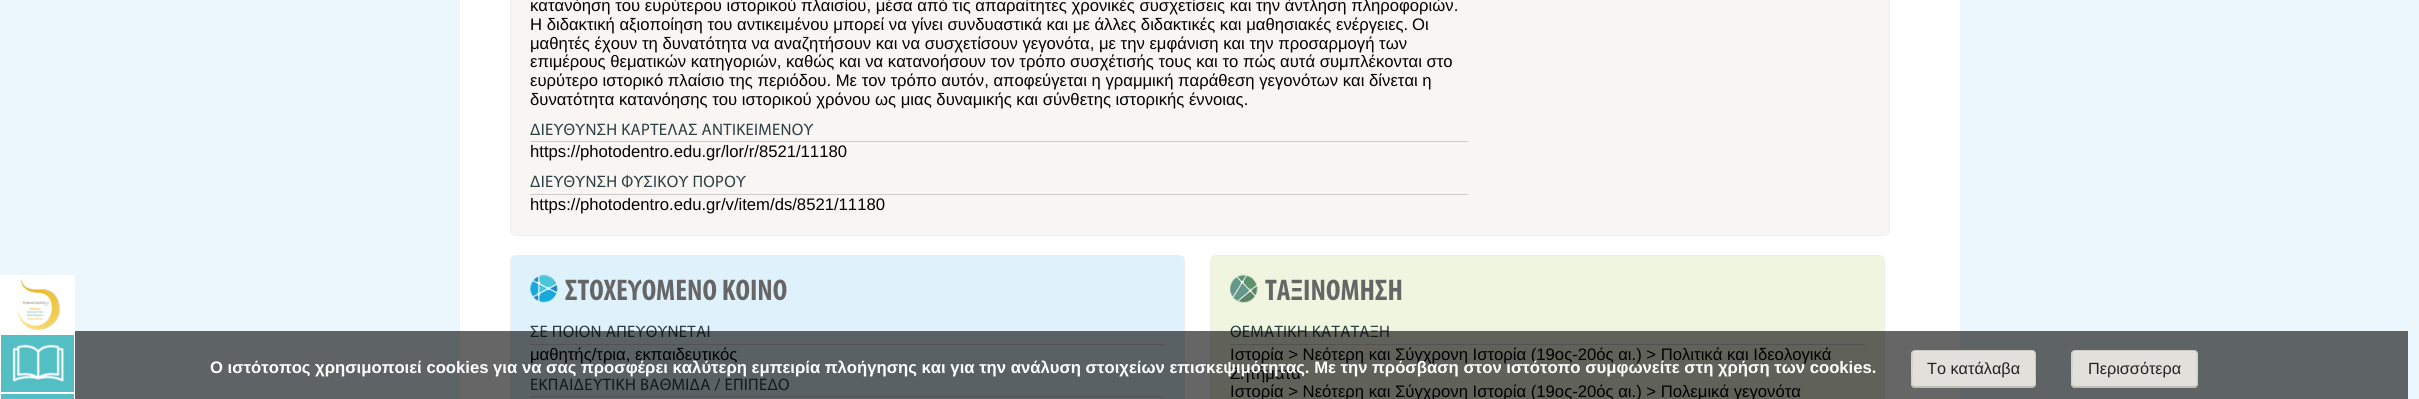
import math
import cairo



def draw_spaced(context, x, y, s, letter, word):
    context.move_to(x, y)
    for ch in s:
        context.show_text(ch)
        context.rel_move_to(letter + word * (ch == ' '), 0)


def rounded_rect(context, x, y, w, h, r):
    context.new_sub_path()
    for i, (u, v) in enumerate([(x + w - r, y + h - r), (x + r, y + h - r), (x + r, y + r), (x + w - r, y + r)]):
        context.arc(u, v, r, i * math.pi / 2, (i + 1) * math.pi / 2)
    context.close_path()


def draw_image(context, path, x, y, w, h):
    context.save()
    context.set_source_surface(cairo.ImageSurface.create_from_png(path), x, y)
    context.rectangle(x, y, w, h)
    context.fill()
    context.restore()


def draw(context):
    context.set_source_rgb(236 / 255, 247 / 255, 253 / 255)
    context.paint()
    context.set_source_rgb(1, 1, 1)
    context.rectangle(0, 275, 75, 59)
    context.fill()
    draw_image(context, "images/1.png", 17, 278, 43, 53)
    context.set_source_rgb(83 / 255, 191 / 255, 197 / 255)
    context.rectangle(1, 335, 73, 57)
    context.fill()
    draw_image(context, "images/2.png", 12, 344, 53, 38)
    context.rectangle(0.5, 334.5, 74, 58)
    context.set_source_rgb(1, 1, 1)
    context.set_line_width(1)
    context.stroke()
    context.set_source_rgb(83 / 255, 191 / 255, 197 / 255)
    context.rectangle(0.5, 393.5, 74, 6)
    context.fill_preserve()
    context.set_source_rgb(1, 1, 1)
    context.stroke()
    context.rectangle(460, 0, 1500, 399)
    context.fill()
    context.set_source_rgb(249 / 255, 245 / 255, 242 / 255)
    rounded_rect(context, 510.5, -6.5, 1379, 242, 5.5)
    context.fill_preserve()
    context.set_source_rgb(238 / 255, 238 / 255, 238 / 255)
    context.stroke()
    context.set_source_rgb(204 / 255, 204 / 255, 204 / 255)
    context.rectangle(530, 141, 938, 1)
    context.fill()
    context.rectangle(530, 194, 938, 1)
    context.fill()
    context.set_source_rgb(223 / 255, 242 / 255, 252 / 255)
    rounded_rect(context, 510.5, 255.5, 674, 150, 5.5)
    context.fill_preserve()
    context.set_source_rgb(238 / 255, 238 / 255, 238 / 255)
    context.stroke()
    draw_image(context, "images/3.png", 530, 274, 28, 29)
    context.set_source_rgb(204 / 255, 204 / 255, 204 / 255)
    context.rectangle(530, 344, 635, 1)
    context.fill()
    context.rectangle(530, 396, 635, 1)
    context.fill()
    context.set_source_rgb(239 / 255, 245 / 255, 223 / 255)
    rounded_rect(context, 1210.5, 255.5, 674, 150, 5.5)
    context.fill_preserve()
    context.set_source_rgb(238 / 255, 238 / 255, 238 / 255)
    context.stroke()
    draw_image(context, "images/4.png", 1230, 274, 28, 29)
    context.set_source_rgb(204 / 255, 204 / 255, 204 / 255)
    context.rectangle(1230, 344, 635, 1)
    context.fill()
    context.select_font_face("Liberation Sans")
    context.set_font_size(16.67)
    context.set_source_rgb(0, 0, 0)
    context.move_to(530, 11)
    context.show_text("κατανόηση του ευρύτερου ιστορικού πλαισίου, μέσα από τις απαραίτητες χρονικές συσχετίσεις και την άντληση πληροφοριών.")
    context.move_to(530, 30)
    context.show_text("Η διδακτική αξιοποίηση του αντικειμένου μπορεί να γίνει συνδυαστικά και με άλλες διδακτικές και μαθησιακές ενέργειες.")
    context.move_to(1412, 30)
    context.show_text("Οι")
    context.move_to(530, 49)
    context.show_text("μαθητές έχουν τη δυνατότητα να αναζητήσουν και να συσχετίσουν γεγονότα, με την εμφάνιση και την προσαρμογή των")
    context.move_to(530, 67)
    context.show_text("επιμέρους θεματικών κατηγοριών, καθώς και να κατανοήσουν τον τρόπο συσχέτισής τους και το πώς αυτά συμπλέκονται στο")
    context.move_to(530, 86)
    context.show_text("ευρύτερο ιστορικό πλαίσιο της περιόδου. Με τον τρόπο αυτόν, αποφεύγεται η γραμμική παράθεση γεγονότων και δίνεται η")
    context.move_to(530, 105)
    context.show_text("δυνατότητα κατανόησης του ιστορικού χρόνου ως μιας δυναμικής και σύνθετης ιστορικής έννοιας.")
    context.select_font_face("Myriad")
    context.set_source_rgb(43 / 255, 62 / 255, 66 / 255)
    draw_spaced(context, 530, 135, "ΔΙΕΥΘΥΝΣΗ ΚΑΡΤΕΛΑΣ ΑΝΤΙΚΕΙΜΕΝΟΥ", 0.3, 0)
    context.select_font_face("Liberation Sans")
    context.set_source_rgb(0, 0, 0)
    context.move_to(530, 157)
    context.show_text("https://photodentro.edu.gr/lor/r/8521/11180")
    context.select_font_face("Myriad")
    context.set_source_rgb(43 / 255, 62 / 255, 66 / 255)
    draw_spaced(context, 530, 187, "ΔΙΕΥΘΥΝΣΗ ΦΥΣΙΚΟΥ ΠΟΡΟΥ", 0.3, 0)
    context.select_font_face("Liberation Sans")
    context.set_source_rgb(0, 0, 0)
    context.move_to(530, 210)
    context.show_text("https://photodentro.edu.gr/v/item/ds/8521/11180")
    context.select_font_face("Myriad", cairo.FontSlant.NORMAL, cairo.FontWeight.BOLD)
    context.set_font_size(30)
    context.set_source_rgb(102 / 255, 102 / 255, 102 / 255)
    context.move_to(565, 300)
    context.show_text("ΣΤΟΧΕΥΟΜΕΝΟ ΚΟΙΝΟ")
    context.select_font_face("Myriad")
    context.set_font_size(16.67)
    context.set_source_rgb(43 / 255, 62 / 255, 66 / 255)
    draw_spaced(context, 530, 337, "ΣΕ ΠΟΙΟΝ ΑΠΕΥΘΥΝΕΤΑΙ", 0.3, 0)
    context.select_font_face("Liberation Sans")
    context.set_source_rgb(0, 0, 0)
    context.move_to(530, 360)
    context.show_text("μαθητής/τρια, εκπαιδευτικός")
    context.select_font_face("Myriad")
    context.set_source_rgb(43 / 255, 62 / 255, 66 / 255)
    draw_spaced(context, 530, 390, "ΕΚΠΑΙΔΕΥΤΙΚΗ ΒΑΘΜΙΔΑ / ΕΠΙΠΕΔΟ", 0.3, 0)
    context.select_font_face("Myriad", cairo.FontSlant.NORMAL, cairo.FontWeight.BOLD)
    context.set_font_size(30)
    context.set_source_rgb(102 / 255, 102 / 255, 102 / 255)
    context.move_to(1265, 300)
    context.show_text("ΤΑΞΙΝΟΜΗΣΗ")
    context.select_font_face("Myriad")
    context.set_font_size(16.67)
    context.set_source_rgb(43 / 255, 62 / 255, 66 / 255)
    draw_spaced(context, 1230, 337, "ΘΕΜΑΤΙΚΗ ΚΑΤΑΤΑΞΗ", 0.3, 0)
    context.select_font_face("Liberation Sans")
    context.set_source_rgb(0, 0, 0)
    context.move_to(1230, 360)
    context.show_text("Ιστορία > Νεότερη και Σύγχρονη Ιστορία (19ος-20ός αι.) > Πολιτικά και Ιδεολογικά")
    context.move_to(1230, 379)
    context.show_text("Ζητήματα")
    context.move_to(1230, 397)
    context.show_text("Ιστορία > Νεότερη και Σύγχρονη Ιστορία (19ος-20ός αι.) > Πολεμικά γεγονότα")
    context.set_source_rgba(0, 0, 0, 0.6)
    context.rectangle(75, 331, 2333, 68)
    context.fill()
    context.select_font_face("Liberation Sans", cairo.FontSlant.NORMAL, cairo.FontWeight.BOLD)
    context.set_source_rgb(1, 1, 1)
    context.move_to(210, 373)
    context.show_text("Ο ιστότοπος χρησιμοποιεί cookies για να σας προσφέρει καλύτερη εμπειρία πλοήγησης και για την ανάλυση στοιχείων επισκεψιμότητας. Με την πρόσβαση στον ιστότοπο συμφωνείτε στη χρήση των cookies.")
    context.set_source_rgb(225 / 255, 224 / 255, 218 / 255)
    rounded_rect(context, 1911, 350, 125, 38, 4)
    context.fill()
    context.set_source_rgb(231 / 255, 230 / 255, 225 / 255)
    context.new_path()
    context.move_to(1915, 352)
    context.line_to(2032, 352)
    context.line_to(2034, 353)
    context.line_to(2035, 355)
    context.line_to(2035, 354)
    context.curve_to(2035, 352, 2034, 351, 2032, 351)
    context.line_to(1916, 351)
    context.curve_to(1914, 351, 1913, 352, 1913, 353)
    context.close_path()
    context.fill()
    context.new_path()
    context.move_to(2034.5, 386)
    context.line_to(2032.5, 387)
    context.line_to(1915, 387)
    context.line_to(1913, 386)
    context.set_source_rgba(0, 0, 0, 0.25)
    context.set_line_width(1.2)
    context.stroke()
    context.new_path()
    context.move_to(1913, 386)
    context.curve_to(1910.5, 383.5, 1912, 376.5, 1912, 374)
    context.line_to(1912, 359)
    context.curve_to(1912, 356.5, 1911, 350.5, 1915, 350.5)
    context.line_to(2032.5, 350.5)
    context.curve_to(2036.5, 350.5, 2035.5, 356.5, 2035.5, 359)
    context.line_to(2035.5, 374)
    context.curve_to(2035.5, 376.5, 2037, 383.5, 2034.5, 386)
    context.set_source_rgba(0, 0, 0, 0.1)
    context.stroke()
    context.select_font_face("Liberation Sans")
    context.set_font_size(16.25)
    context.set_source_rgb(36 / 255, 35 / 255, 35 / 255)
    context.move_to(1927, 374)
    context.show_text("Το κατάλαβα")
    context.set_source_rgb(225 / 255, 224 / 255, 218 / 255)
    rounded_rect(context, 2071, 350, 127, 38, 4)
    context.fill()
    context.set_source_rgb(231 / 255, 230 / 255, 225 / 255)
    context.new_path()
    context.move_to(2075, 352)
    context.line_to(2195, 352)
    context.line_to(2196, 355)
    context.line_to(2196, 354)
    context.curve_to(2196, 352, 2195, 351, 2194, 351)
    context.line_to(2076, 351)
    context.curve_to(2074, 351, 2073, 352, 2073, 353)
    context.close_path()
    context.fill()
    context.new_path()
    context.move_to(2196, 386)
    context.line_to(2194, 387)
    context.line_to(2075, 387)
    context.line_to(2073, 386)
    context.set_source_rgb(169 / 255, 168 / 255, 164 / 255)
    context.stroke()
    context.new_path()
    context.move_to(2073, 386)
    context.curve_to(2070.5, 383.5, 2072, 376.5, 2072, 374)
    context.line_to(2072, 359)
    context.curve_to(2072, 356.5, 2071, 350.5, 2075, 350.5)
    context.line_to(2194, 350.5)
    context.curve_to(2198, 350.5, 2197, 356.5, 2197, 359)
    context.line_to(2197, 374)
    context.curve_to(2197, 376.5, 2198, 383.5, 2196, 386)
    context.set_source_rgba(0, 0, 0, 0.1)
    context.stroke()
    context.set_source_rgb(36 / 255, 35 / 255, 35 / 255)
    context.move_to(2088, 374)
    context.show_text("Περισσότερα")


surface = cairo.ImageSurface(cairo.Format.RGB24, 2419, 399)
context = cairo.Context(surface)
options = cairo.FontOptions()
options.set_hint_metrics(cairo.HintMetrics.OFF)
options.set_hint_style(cairo.HintStyle.NONE)
context.set_font_options(options)
context.set_miter_limit(4)
draw(context)
surface.write_to_png("out.png")
